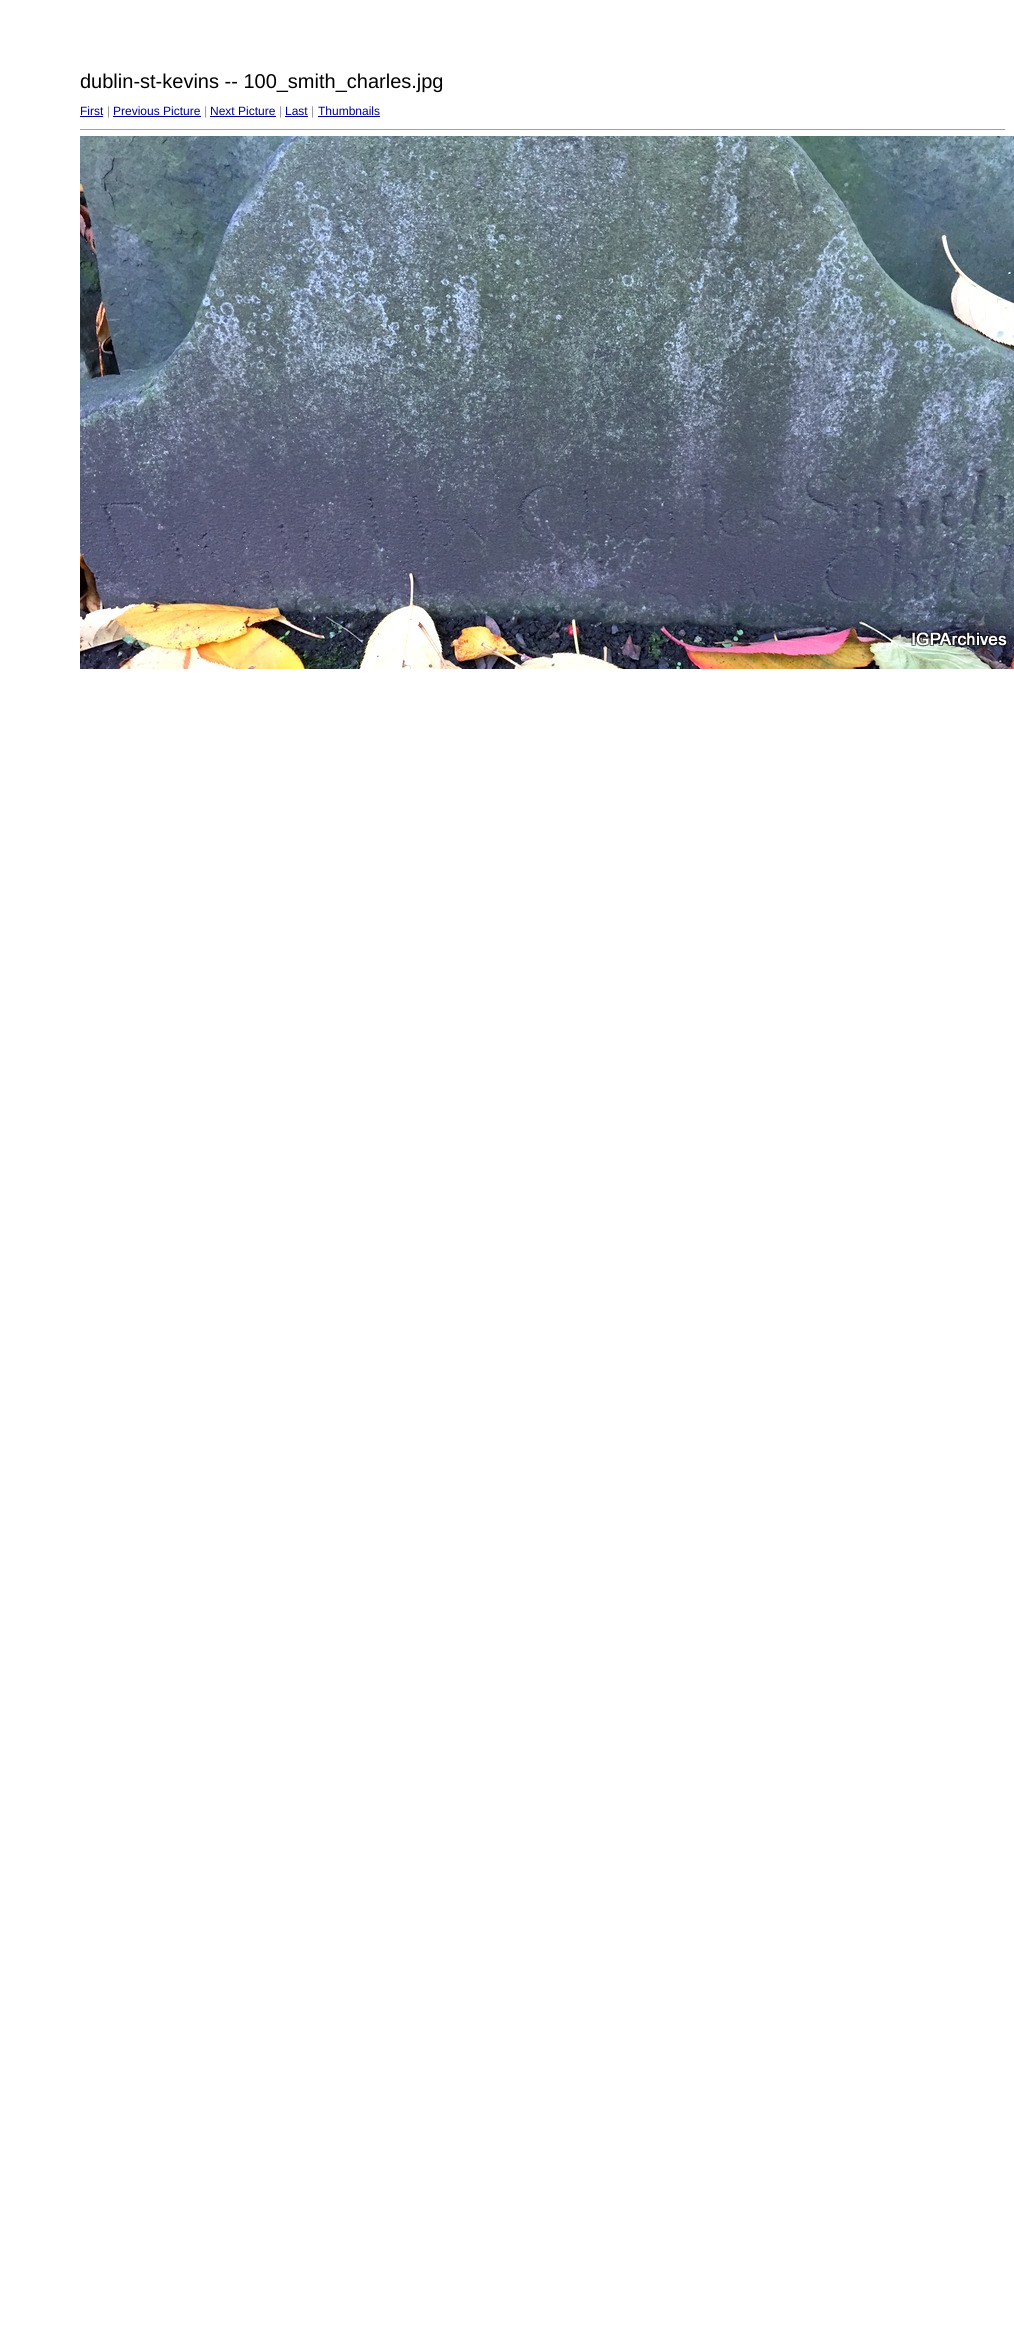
import math
import cairo



def draw_image(context, path, x, y, w, h):
    context.save()
    context.set_source_surface(cairo.ImageSurface.create_from_png(path), x, y)
    context.rectangle(x, y, w, h)
    context.fill()
    context.restore()


def draw(context):
    context.set_source_rgb(1, 1, 1)
    context.paint()
    context.set_source_rgb(0, 0, 153 / 255)
    context.rectangle(80, 116, 23, 1)
    context.fill()
    context.rectangle(113, 116, 88, 1)
    context.fill()
    context.rectangle(210, 116, 66, 1)
    context.fill()
    context.rectangle(285, 116, 23, 1)
    context.fill()
    context.rectangle(318, 116, 62, 1)
    context.fill()
    context.set_source_rgb(159 / 255, 159 / 255, 159 / 255)
    context.rectangle(80, 129, 926, 1)
    context.fill()
    context.set_source_rgb(238 / 255, 238 / 255, 238 / 255)
    context.rectangle(1005, 129, 1, 1)
    context.fill()
    draw_image(context, "images/1.png", 80, 136, 934, 533)
    context.select_font_face("Liberation Sans")
    context.set_font_size(20)
    context.set_source_rgb(0, 0, 0)
    context.move_to(80, 88)
    context.show_text("dublin-st-kevins -- 100_smith_charles.jpg")
    context.set_font_size(12)
    context.set_source_rgb(0, 0, 153 / 255)
    context.move_to(80, 115)
    context.show_text("First")
    context.set_source_rgb(151 / 255, 151 / 255, 151 / 255)
    context.move_to(107, 115)
    context.show_text("|")
    context.set_source_rgb(0, 0, 153 / 255)
    context.move_to(113, 115)
    context.show_text("Previous Picture")
    context.set_source_rgb(151 / 255, 151 / 255, 151 / 255)
    context.move_to(204, 115)
    context.show_text("|")
    context.set_source_rgb(0, 0, 153 / 255)
    context.move_to(210, 115)
    context.show_text("Next Picture")
    context.set_source_rgb(151 / 255, 151 / 255, 151 / 255)
    context.move_to(279, 115)
    context.show_text("|")
    context.set_source_rgb(0, 0, 153 / 255)
    context.move_to(285, 115)
    context.show_text("Last")
    context.set_source_rgb(151 / 255, 151 / 255, 151 / 255)
    context.move_to(311, 115)
    context.show_text("|")
    context.set_source_rgb(0, 0, 153 / 255)
    context.move_to(318, 115)
    context.show_text("Thumbnails")


surface = cairo.ImageSurface(cairo.Format.RGB24, 1014, 2344)
context = cairo.Context(surface)
options = cairo.FontOptions()
options.set_hint_metrics(cairo.HintMetrics.OFF)
options.set_hint_style(cairo.HintStyle.NONE)
context.set_font_options(options)
context.set_miter_limit(4)
draw(context)
surface.write_to_png("out.png")
